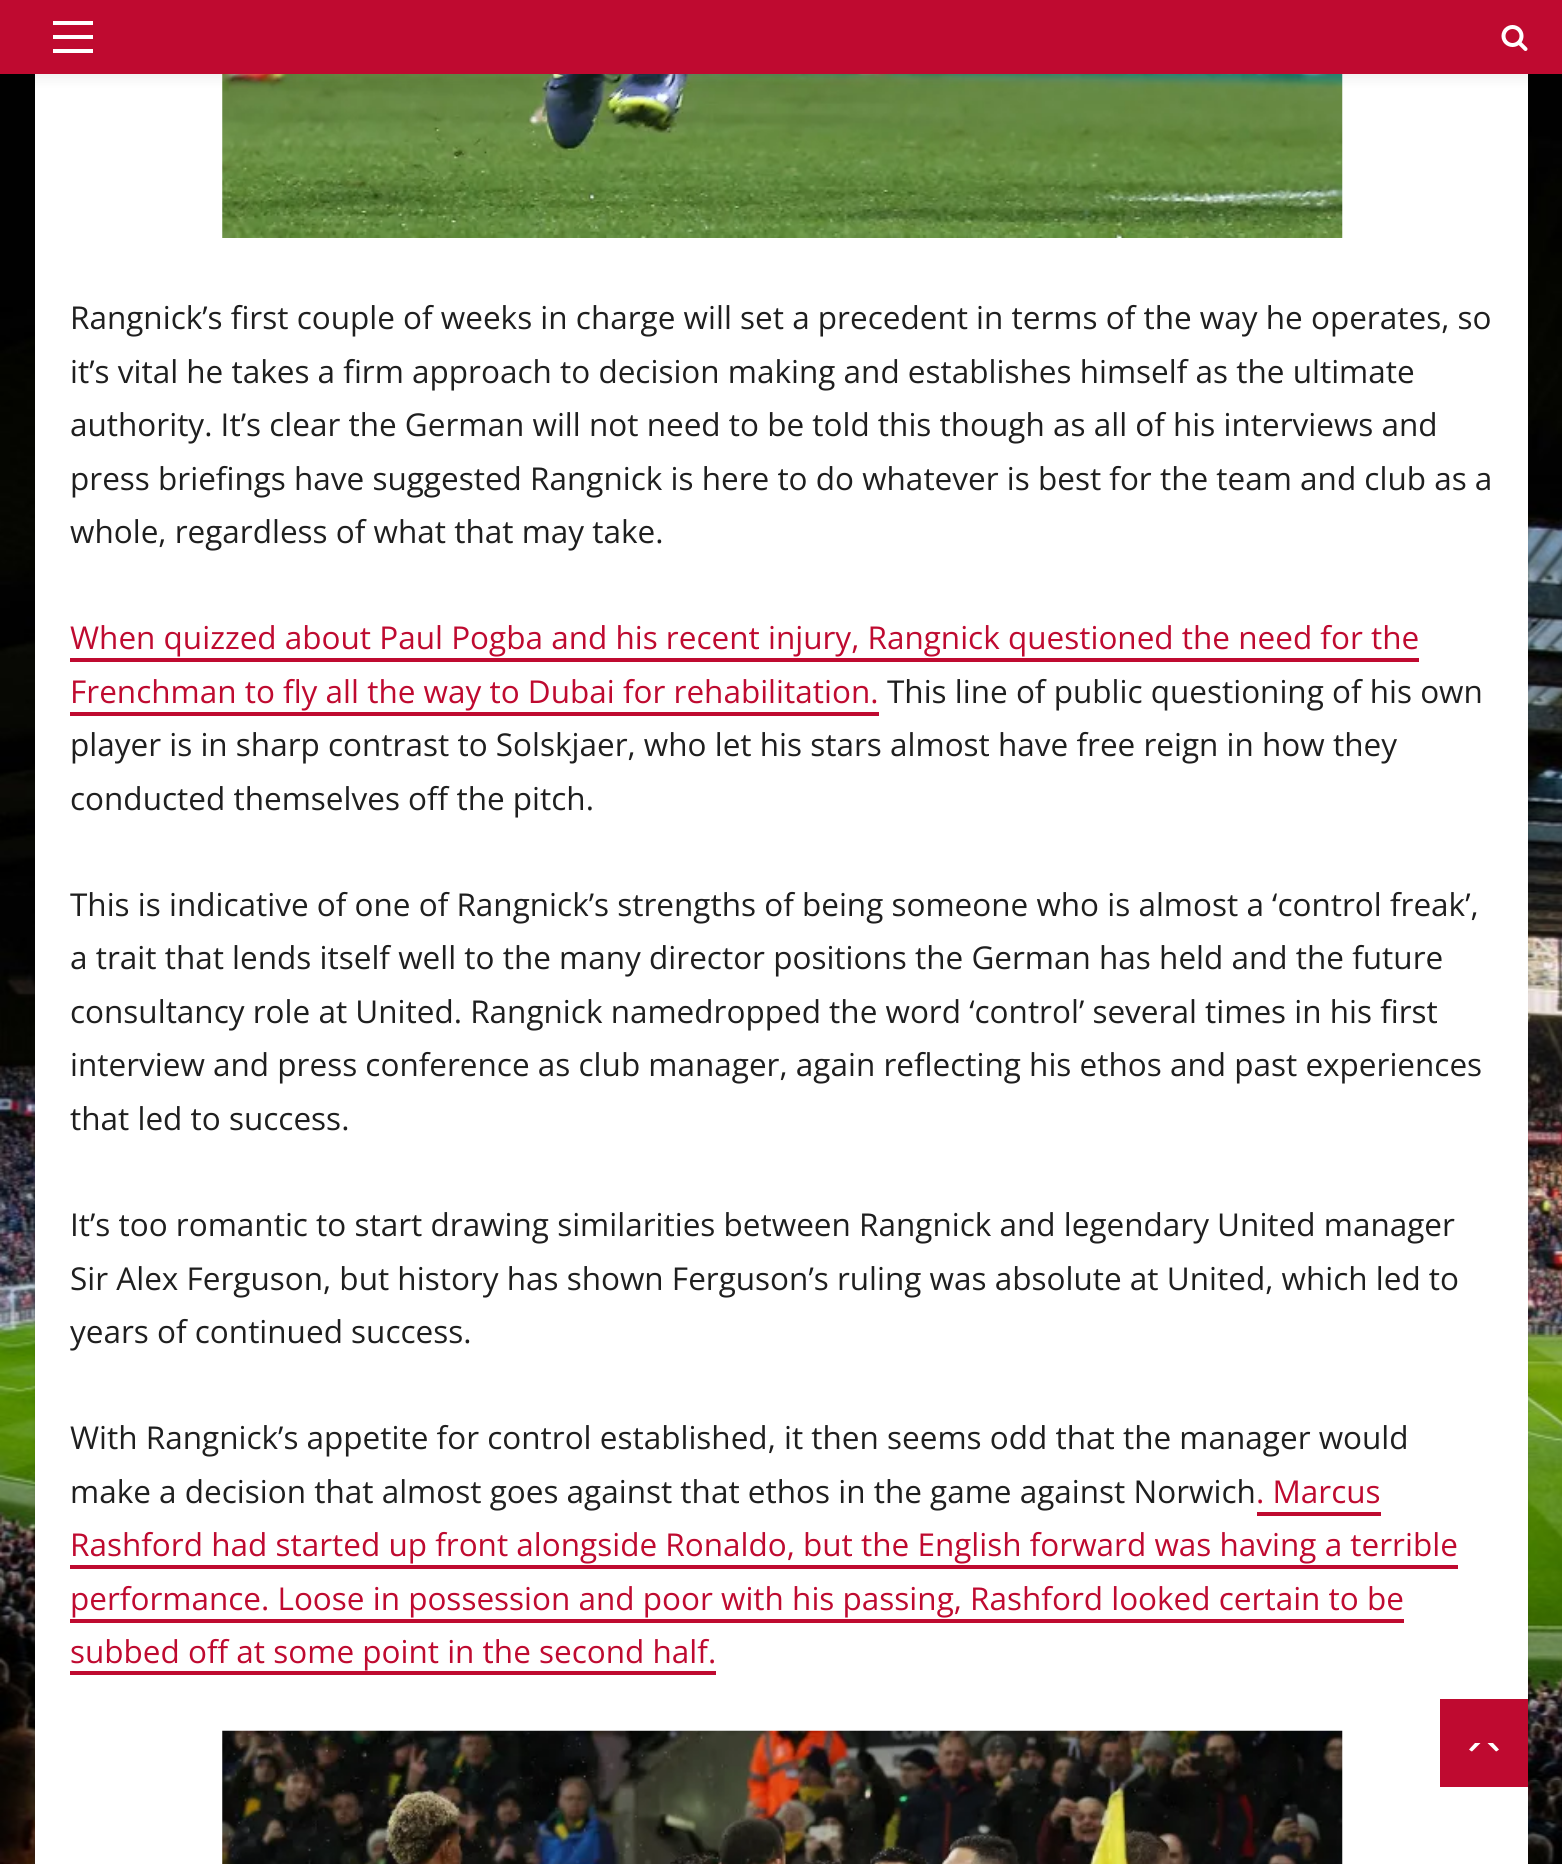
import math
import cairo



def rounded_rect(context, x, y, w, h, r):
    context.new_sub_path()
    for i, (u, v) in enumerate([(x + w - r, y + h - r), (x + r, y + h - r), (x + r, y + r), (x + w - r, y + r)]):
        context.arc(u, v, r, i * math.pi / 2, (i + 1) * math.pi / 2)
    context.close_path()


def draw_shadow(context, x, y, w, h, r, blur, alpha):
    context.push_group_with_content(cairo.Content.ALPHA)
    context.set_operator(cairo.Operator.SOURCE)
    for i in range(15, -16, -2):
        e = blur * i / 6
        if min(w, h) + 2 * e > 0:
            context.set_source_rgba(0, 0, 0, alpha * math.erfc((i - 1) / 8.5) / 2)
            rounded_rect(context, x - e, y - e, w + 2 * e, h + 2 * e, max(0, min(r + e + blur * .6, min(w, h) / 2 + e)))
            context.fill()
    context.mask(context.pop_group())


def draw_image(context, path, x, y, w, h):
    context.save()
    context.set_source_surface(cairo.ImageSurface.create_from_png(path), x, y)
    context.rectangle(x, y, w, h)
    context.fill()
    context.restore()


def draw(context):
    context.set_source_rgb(1, 1, 1)
    context.paint()
    draw_image(context, "images/1.png", 0, 74, 1562, 1790)
    context.set_source_rgb(0, 0, 0)
    draw_shadow(context, 35, -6, 1493, 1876, 0, 2, 0.08)
    context.set_source_rgb(1, 1, 1)
    context.rectangle(35, 74, 1493, 1790)
    context.fill()
    draw_image(context, "images/3.png", 222, 74, 1121, 164)
    context.set_source_rgb(0, 0, 0)
    draw_shadow(context, 0, 4, 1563, 73, 0, 7, 0.08)
    context.set_source_rgb(191 / 255, 10 / 255, 48 / 255)
    context.rectangle(0, 0, 1562, 74)
    context.fill()
    context.set_source_rgb(1, 1, 1)
    context.rectangle(53, 35, 40, 4)
    context.fill()
    context.rectangle(53, 21, 40, 4)
    context.fill()
    context.rectangle(53, 49, 40, 4)
    context.fill()
    draw_image(context, "images/2.png", 1501, 25, 27, 26)
    context.set_source_rgb(191 / 255, 10 / 255, 48 / 255)
    context.rectangle(70, 658, 1349, 4)
    context.fill()
    context.rectangle(70, 712, 809, 4)
    context.fill()
    context.rectangle(1257, 1512, 124, 4)
    context.fill()
    context.rectangle(70, 1565, 1388, 4)
    context.fill()
    context.rectangle(70, 1619, 1334, 4)
    context.fill()
    context.rectangle(70, 1671, 646, 4)
    context.fill()
    draw_image(context, "images/4.png", 222, 1730, 1121, 134)
    context.rectangle(1440, 1699, 88, 88)
    context.fill()
    context.set_source_rgb(1, 1, 1)
    context.new_path()
    context.move_to(1473, 1752)
    context.curve_to(1471.5, 1751.5, 1470, 1750.5, 1469, 1749.5)
    context.line_to(1475, 1743)
    context.line_to(1493, 1743)
    context.line_to(1499, 1749.5)
    context.curve_to(1498, 1750.5, 1496.5, 1751.5, 1495, 1752)
    context.close_path()
    context.fill()
    context.set_source_rgb(191 / 255, 10 / 255, 48 / 255)
    context.new_path()
    context.move_to(1501.5, 1757)
    context.line_to(1466.5, 1757)
    context.line_to(1484, 1739.5)
    context.close_path()
    context.fill()
    context.select_font_face("Open Sans")
    context.set_font_size(31.5)
    context.set_source_rgb(31 / 255, 31 / 255, 31 / 255)
    context.move_to(70, 329)
    context.show_text("Rangnick’s first couple of weeks in charge will set a precedent in terms of the way he operates, so")
    context.move_to(70, 383)
    context.show_text("it’s vital he takes a firm approach to decision making and establishes himself as the ultimate")
    context.move_to(70, 436)
    context.show_text("authority. It’s clear the German will not need to be told this though as all of his interviews and")
    context.move_to(70, 490)
    context.show_text("press briefings have suggested Rangnick is here to do whatever is best for the team and club as a")
    context.move_to(70, 543)
    context.show_text("whole, regardless of what that may take.")
    context.set_source_rgb(191 / 255, 10 / 255, 48 / 255)
    context.move_to(70, 649)
    context.show_text("When quizzed about Paul Pogba and his recent injury, Rangnick questioned the need for the")
    context.move_to(70, 703)
    context.show_text("Frenchman to fly all the way to Dubai for rehabilitation.")
    context.set_source_rgb(31 / 255, 31 / 255, 31 / 255)
    context.move_to(887, 703)
    context.show_text("This line of public questioning of his own")
    context.move_to(70, 756)
    context.show_text("player is in sharp contrast to Solskjaer, who let his stars almost have free reign in how they")
    context.move_to(70, 810)
    context.show_text("conducted themselves off the pitch.")
    context.move_to(70, 916)
    context.show_text("This is indicative of one of Rangnick’s strengths of being someone who is almost a ‘control freak’,")
    context.move_to(70, 969)
    context.show_text("a trait that lends itself well to the many director positions the German has held and the future")
    context.move_to(70, 1023)
    context.show_text("consultancy role at United. Rangnick namedropped the word ‘control’ several times in his first")
    context.move_to(70, 1076)
    context.show_text("interview and press conference as club manager, again reflecting his ethos and past experiences")
    context.move_to(70, 1130)
    context.show_text("that led to success.")
    context.move_to(70, 1236)
    context.show_text("It’s too romantic to start drawing similarities between Rangnick and legendary United manager")
    context.move_to(70, 1290)
    context.show_text("Sir Alex Ferguson, but history has shown Ferguson’s ruling was absolute at United, which led to")
    context.move_to(70, 1343)
    context.show_text("years of continued success.")
    context.move_to(70, 1449)
    context.show_text("With Rangnick’s appetite for control established, it then seems odd that the manager would")
    context.move_to(70, 1503)
    context.show_text("make a decision that almost goes against that ethos in the game against Norwich")
    context.set_source_rgb(191 / 255, 10 / 255, 48 / 255)
    context.move_to(1256, 1503)
    context.show_text(". Marcus")
    context.move_to(70, 1556)
    context.show_text("Rashford had started up front alongside Ronaldo, but the English forward was having a terrible")
    context.move_to(70, 1610)
    context.show_text("performance. Loose in possession and poor with his passing, Rashford looked certain to be")
    context.move_to(70, 1663)
    context.show_text("subbed off at some point in the second half.")


surface = cairo.ImageSurface(cairo.Format.RGB24, 1562, 1864)
context = cairo.Context(surface)
options = cairo.FontOptions()
options.set_hint_metrics(cairo.HintMetrics.OFF)
options.set_hint_style(cairo.HintStyle.NONE)
context.set_font_options(options)
context.set_miter_limit(4)
draw(context)
surface.write_to_png("out.png")
